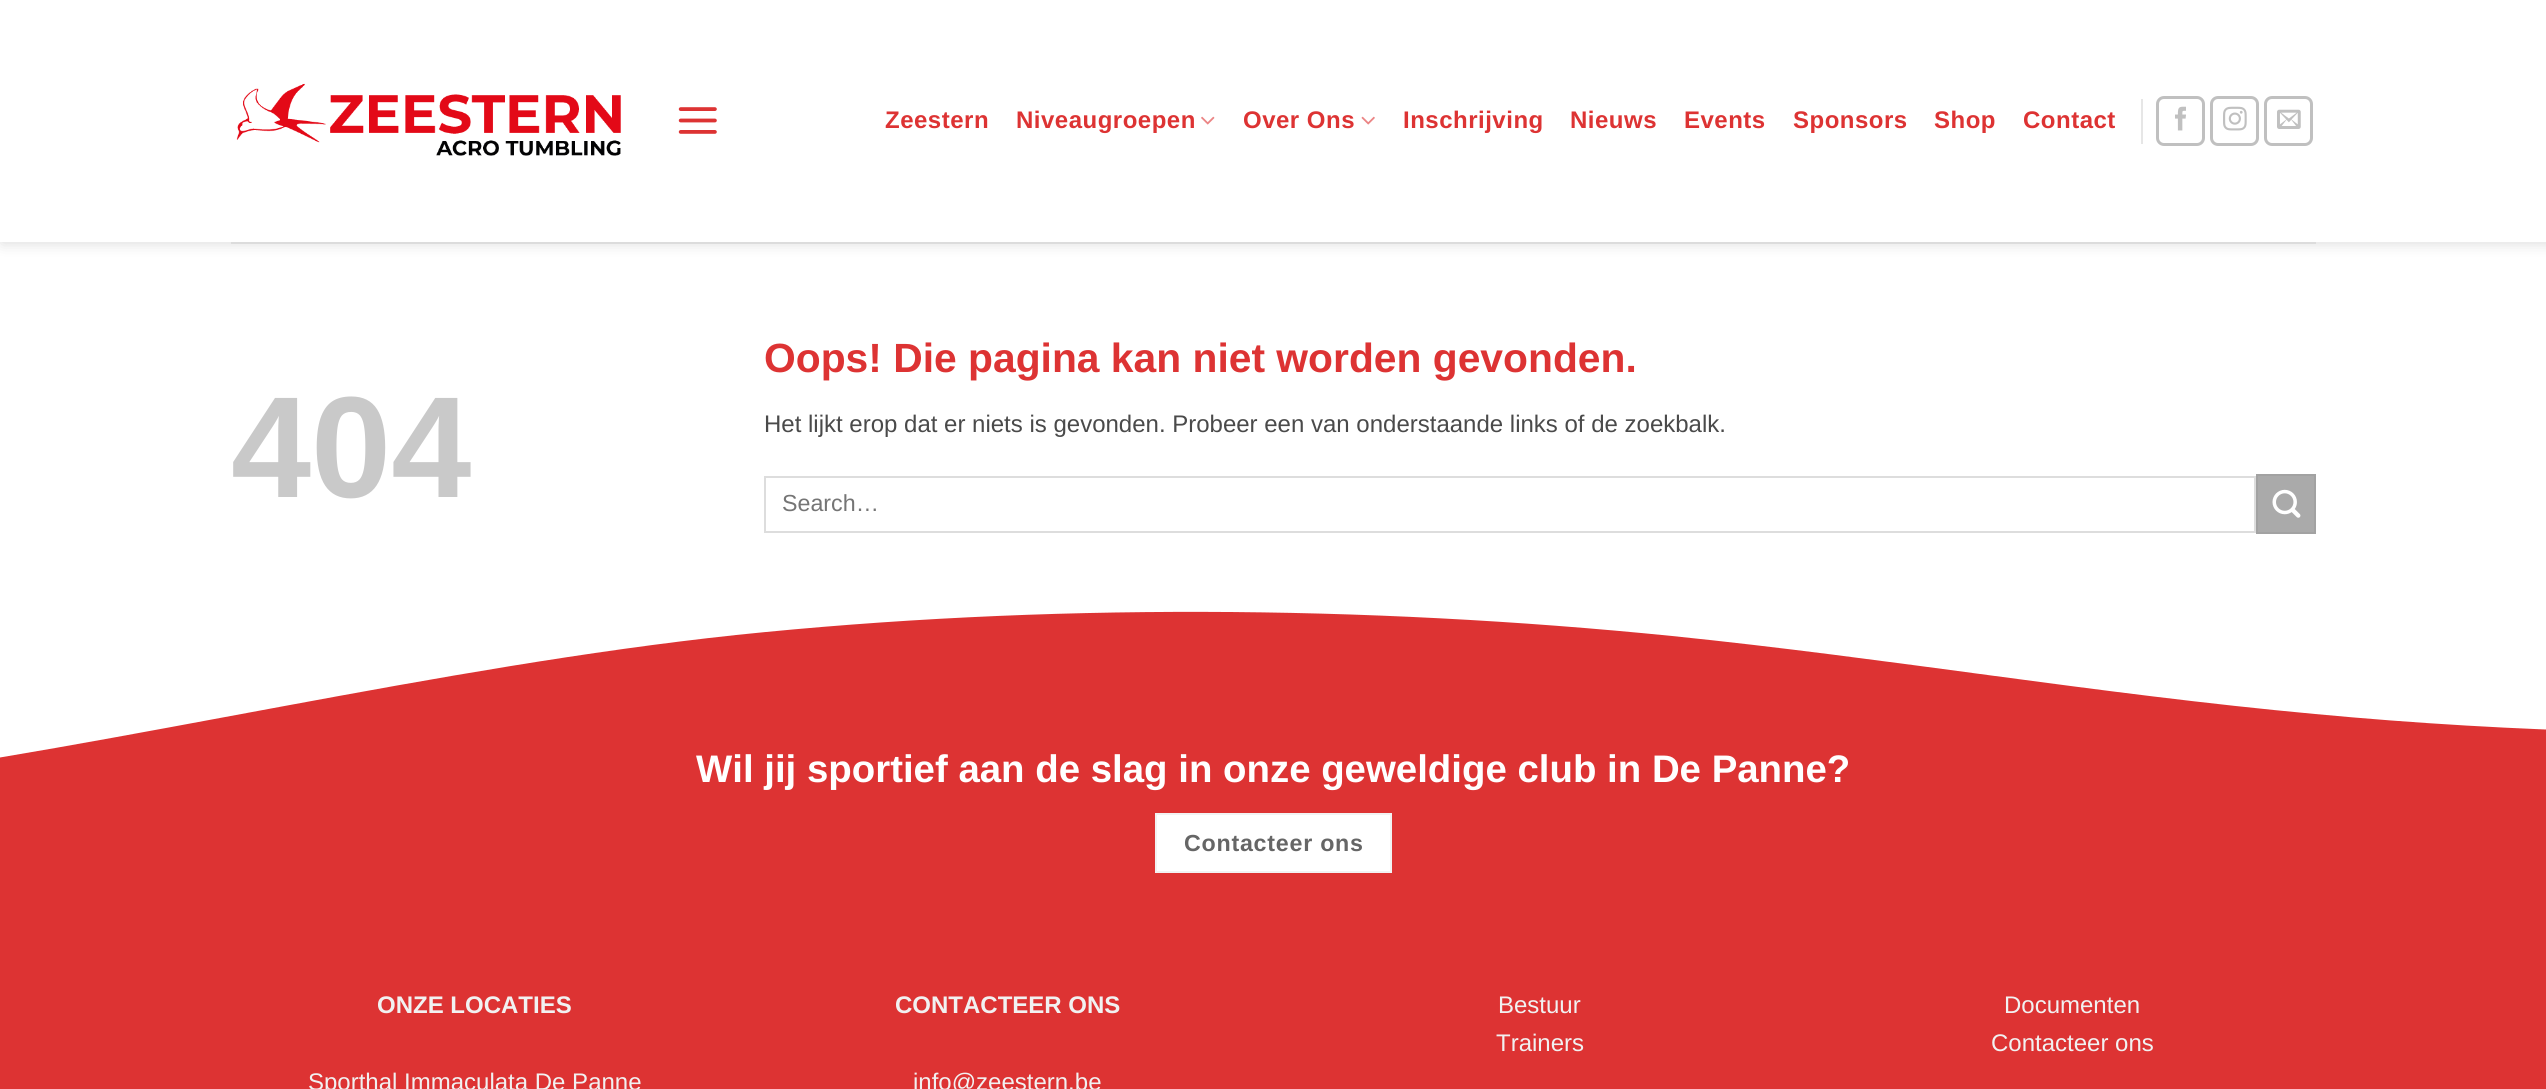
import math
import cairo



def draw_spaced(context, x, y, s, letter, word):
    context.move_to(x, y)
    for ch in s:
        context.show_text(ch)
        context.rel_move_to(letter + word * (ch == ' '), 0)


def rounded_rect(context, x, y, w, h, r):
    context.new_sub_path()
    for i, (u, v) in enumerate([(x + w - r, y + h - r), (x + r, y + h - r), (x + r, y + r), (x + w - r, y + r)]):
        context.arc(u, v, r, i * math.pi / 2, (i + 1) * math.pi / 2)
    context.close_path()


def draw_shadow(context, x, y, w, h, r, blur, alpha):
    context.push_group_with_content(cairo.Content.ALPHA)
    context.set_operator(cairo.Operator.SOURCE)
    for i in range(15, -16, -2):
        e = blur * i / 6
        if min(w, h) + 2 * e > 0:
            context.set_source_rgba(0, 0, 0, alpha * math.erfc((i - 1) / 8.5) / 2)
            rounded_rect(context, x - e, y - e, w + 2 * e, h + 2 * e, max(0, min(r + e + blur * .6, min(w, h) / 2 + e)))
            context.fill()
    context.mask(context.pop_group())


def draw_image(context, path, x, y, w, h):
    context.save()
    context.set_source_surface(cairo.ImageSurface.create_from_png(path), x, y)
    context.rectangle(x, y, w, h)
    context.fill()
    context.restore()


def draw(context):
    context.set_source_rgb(1, 1, 1)
    context.paint()
    context.save()
    context.set_fill_rule(cairo.FillRule.EVEN_ODD)
    context.new_path()
    context.move_to(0, 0)
    context.line_to(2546, 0)
    context.line_to(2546, 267)
    context.line_to(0, 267)
    context.close_path()
    context.move_to(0, 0)
    context.line_to(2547, 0)
    context.line_to(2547, 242)
    context.line_to(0, 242)
    context.close_path()
    context.clip()
    context.set_source_rgb(0, 0, 0)
    draw_shadow(context, 2, 2, 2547, 241, 0, 7.5, 0.15)
    context.restore()
    draw_image(context, "images/1.png", 236, 83, 385, 73)
    draw_image(context, "images/2.png", 678, 107, 39, 27)
    draw_image(context, "images/3.png", 1201, 116, 14, 9)
    draw_image(context, "images/4.png", 1361, 116, 14, 9)
    context.set_source_rgb(230 / 255, 230 / 255, 230 / 255)
    context.rectangle(2141, 99, 2, 45)
    context.fill()
    rounded_rect(context, 2157.5, 97.5, 46, 47, 6.5)
    context.set_source_rgb(192 / 255, 192 / 255, 192 / 255)
    context.set_line_width(3)
    context.stroke()
    draw_image(context, "images/5.png", 2175, 106, 11, 25)
    rounded_rect(context, 2211.5, 97.5, 46, 47, 6.5)
    context.stroke()
    draw_image(context, "images/6.png", 2223, 106, 24, 25)
    rounded_rect(context, 2265.5, 97.5, 46, 47, 6.5)
    context.stroke()
    draw_image(context, "images/7.png", 2277, 109, 24, 20)
    context.set_source_rgb(220 / 255, 220 / 255, 220 / 255)
    context.rectangle(231, 242, 2085, 2)
    context.fill()
    context.set_source_rgba(1, 1, 1, 0.9)
    context.rectangle(0, 241, 2546, 1)
    context.fill()
    context.rectangle(765, 477, 1490, 55)
    context.set_source_rgb(221 / 255, 221 / 255, 221 / 255)
    context.set_line_width(2)
    context.stroke()
    context.set_source_rgb(170 / 255, 170 / 255, 170 / 255)
    context.rectangle(2257, 475, 58, 58)
    context.fill_preserve()
    context.set_source_rgb(162 / 255, 162 / 255, 162 / 255)
    context.stroke()
    draw_image(context, "images/8.png", 2272, 489, 29, 29)
    context.set_source_rgb(221 / 255, 51 / 255, 51 / 255)
    context.rectangle(0, 611, 2546, 478)
    context.fill()
    context.set_source_rgb(1, 1, 1)
    context.new_path()
    context.move_to(2315, 714)
    context.curve_to(2098, 694, 1888, 658, 1672, 636)
    context.curve_to(1364, 605, 1043, 603, 736, 635)
    context.curve_to(437, 667, 127, 744, -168, 783)
    context.curve_to(-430, 817, -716, 832, -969, 788)
    context.line_to(-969, 609)
    context.line_to(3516, 609)
    context.line_to(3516, 660)
    context.curve_to(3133, 733, 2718, 752, 2315, 714)
    context.close_path()
    context.fill()
    context.rectangle(1156, 814, 235, 58)
    context.fill_preserve()
    context.set_source_rgb(242 / 255, 242 / 255, 242 / 255)
    context.stroke()
    context.select_font_face("Liberation Sans", cairo.FontSlant.NORMAL, cairo.FontWeight.BOLD)
    context.set_font_size(24)
    context.set_source_rgb(221 / 255, 51 / 255, 51 / 255)
    draw_spaced(context, 885, 128, "Zeestern", 0.5, 0)
    draw_spaced(context, 1016, 128, "Niveaugroepen", 0.5, 0)
    draw_spaced(context, 1243, 128, "Over Ons", 0.5, 0)
    draw_spaced(context, 1403, 128, "Inschrijving", 0.5, 0)
    draw_spaced(context, 1570, 128, "Nieuws", 0.5, 0)
    draw_spaced(context, 1684, 128, "Events", 0.5, 0)
    draw_spaced(context, 1793, 128, "Sponsors", 0.5, 0)
    draw_spaced(context, 1934, 128, "Shop", 0.5, 0)
    draw_spaced(context, 2023, 128, "Contact", 0.5, 0)
    context.set_font_size(144)
    context.set_source_rgb(201 / 255, 201 / 255, 201 / 255)
    context.move_to(231, 497)
    context.show_text("404")
    context.set_font_size(40.8)
    context.set_source_rgb(221 / 255, 51 / 255, 51 / 255)
    context.move_to(764, 372)
    context.show_text("Oops! Die pagina kan niet worden gevonden.")
    context.select_font_face("Liberation Sans")
    context.set_font_size(24)
    context.set_source_rgb(74 / 255, 74 / 255, 74 / 255)
    context.move_to(764, 432)
    context.show_text("Het lijkt erop dat er niets is gevonden. Probeer een van onderstaande links of de zoekbalk.")
    context.set_font_size(23.25)
    context.set_source_rgb(117 / 255, 117 / 255, 117 / 255)
    context.move_to(782, 511)
    context.show_text("Search…")
    context.select_font_face("Liberation Sans", cairo.FontSlant.NORMAL, cairo.FontWeight.BOLD)
    context.set_font_size(38.4)
    context.set_source_rgb(1, 1, 1)
    context.move_to(696, 782)
    context.show_text("Wil jij sportief aan de slag in onze geweldige club in De Panne?")
    context.set_font_size(23.25)
    context.set_source_rgb(102 / 255, 102 / 255, 102 / 255)
    draw_spaced(context, 1184, 851, "Contacteer ons", 0.75, 0)
    context.set_font_size(24)
    context.set_source_rgb(241 / 255, 241 / 255, 241 / 255)
    context.move_to(377, 1013)
    context.show_text("ONZE LOCATIES")
    context.select_font_face("Liberation Sans")
    context.move_to(308, 1090)
    context.show_text("Sporthal Immaculata De Panne")
    context.select_font_face("Liberation Sans", cairo.FontSlant.NORMAL, cairo.FontWeight.BOLD)
    context.move_to(895, 1013)
    context.show_text("CONTACTEER ONS")
    context.select_font_face("Liberation Sans")
    context.move_to(913, 1090)
    context.show_text("info@zeestern.be")
    context.move_to(1498, 1013)
    context.show_text("Bestuur")
    context.move_to(1496, 1051)
    context.show_text("Trainers")
    context.move_to(2004, 1013)
    context.show_text("Documenten")
    context.move_to(1991, 1051)
    context.show_text("Contacteer ons")


surface = cairo.ImageSurface(cairo.Format.RGB24, 2546, 1089)
context = cairo.Context(surface)
options = cairo.FontOptions()
options.set_hint_metrics(cairo.HintMetrics.OFF)
options.set_hint_style(cairo.HintStyle.NONE)
context.set_font_options(options)
context.set_miter_limit(4)
draw(context)
surface.write_to_png("out.png")
